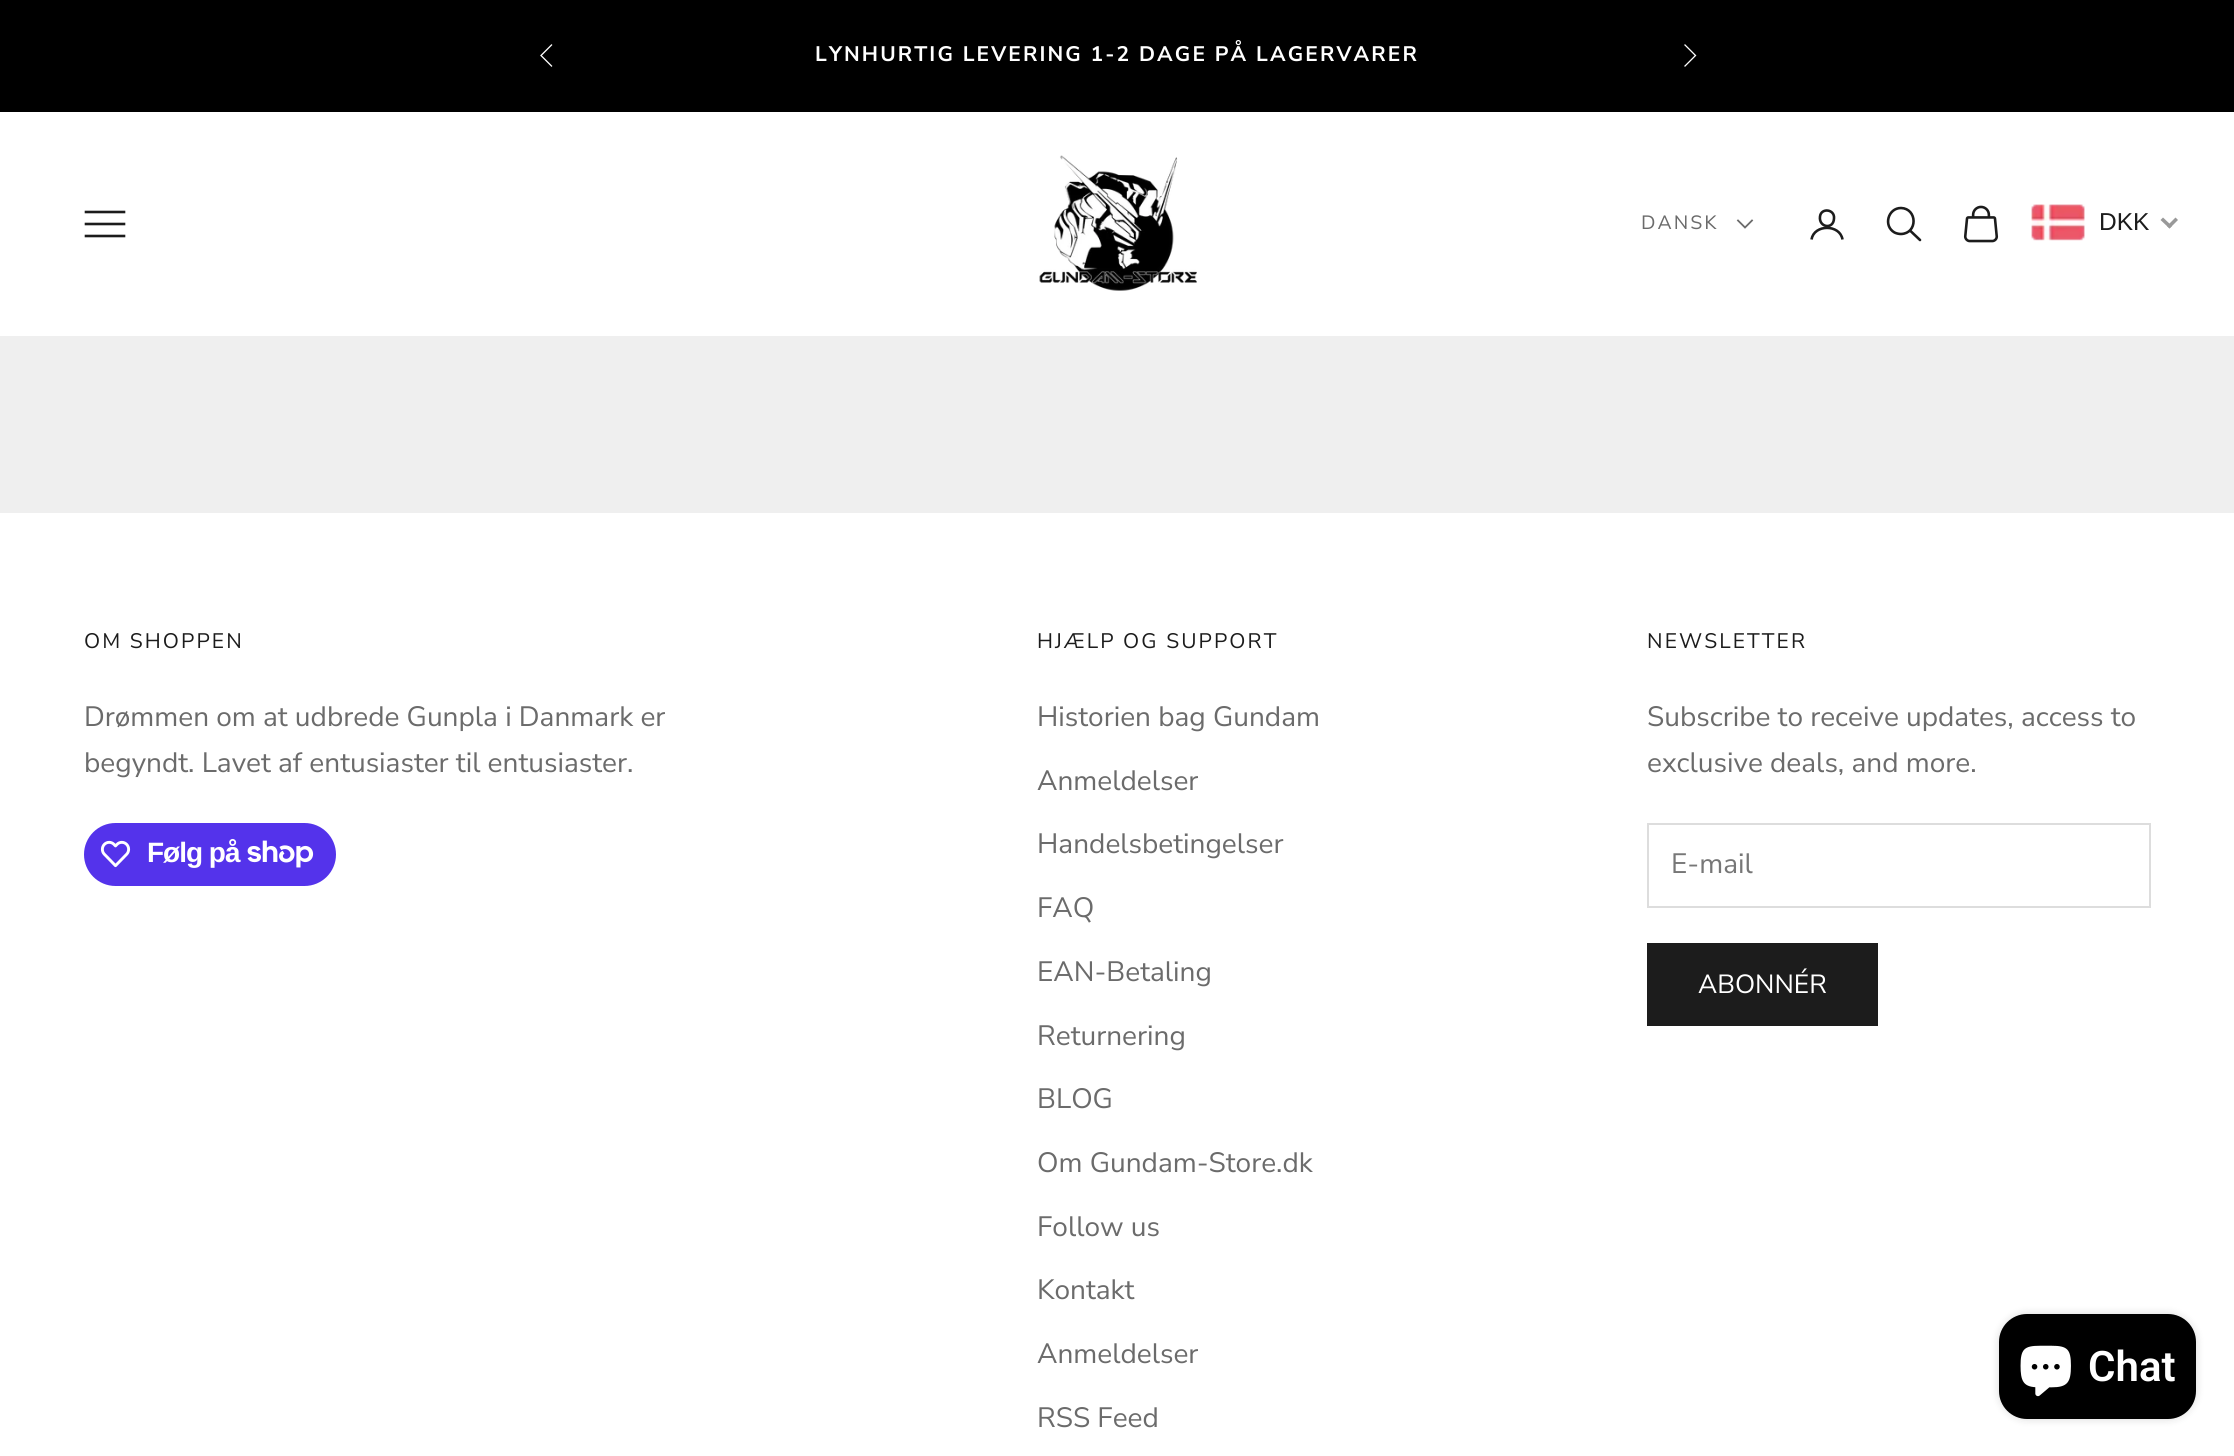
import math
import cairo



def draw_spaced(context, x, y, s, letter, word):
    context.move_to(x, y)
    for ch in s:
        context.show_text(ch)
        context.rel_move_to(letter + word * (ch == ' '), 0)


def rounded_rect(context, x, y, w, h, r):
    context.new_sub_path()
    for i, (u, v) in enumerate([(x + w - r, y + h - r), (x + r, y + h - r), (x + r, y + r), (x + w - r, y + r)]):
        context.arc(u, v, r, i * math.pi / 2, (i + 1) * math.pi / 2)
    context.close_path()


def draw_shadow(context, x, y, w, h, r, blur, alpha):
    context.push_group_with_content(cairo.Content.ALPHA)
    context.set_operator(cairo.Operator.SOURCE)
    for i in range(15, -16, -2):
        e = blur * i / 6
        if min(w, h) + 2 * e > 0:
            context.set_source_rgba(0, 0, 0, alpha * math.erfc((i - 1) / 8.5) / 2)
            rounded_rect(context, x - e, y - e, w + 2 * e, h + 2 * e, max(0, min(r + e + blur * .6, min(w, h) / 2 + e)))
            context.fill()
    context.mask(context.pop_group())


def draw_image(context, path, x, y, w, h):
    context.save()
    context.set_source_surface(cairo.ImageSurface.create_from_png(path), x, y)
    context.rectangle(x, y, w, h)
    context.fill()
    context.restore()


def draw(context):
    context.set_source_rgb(239 / 255, 239 / 255, 239 / 255)
    context.paint()
    context.set_source_rgb(0, 0, 0)
    context.rectangle(0, 0, 2234, 112)
    context.fill()
    context.new_path()
    context.move_to(551.5, 45)
    context.line_to(541, 55.5)
    context.line_to(551.5, 66)
    context.set_source_rgb(1, 1, 1)
    context.set_line_width(1.3)
    context.set_line_cap(cairo.LineCap.SQUARE)
    context.stroke()
    context.new_path()
    context.move_to(1685, 66)
    context.line_to(1695.5, 55.5)
    context.line_to(1685, 45)
    context.stroke()
    context.rectangle(0, 112, 2234, 224)
    context.fill()
    context.new_path()
    context.move_to(86, 236)
    context.line_to(124, 236)
    context.move_to(86, 224)
    context.line_to(124, 224)
    context.move_to(86, 212)
    context.line_to(124, 212)
    context.set_source_rgb(28 / 255, 28 / 255, 28 / 255)
    context.set_line_width(2.6)
    context.stroke()
    draw_image(context, "images/1.png", 1039, 155, 158, 136)
    context.new_path()
    context.move_to(1738, 220.5)
    context.line_to(1745, 227.5)
    context.line_to(1752, 220.5)
    context.set_source_rgb(107 / 255, 107 / 255, 107 / 255)
    context.set_line_width(1.8)
    context.stroke()
    context.new_path()
    context.move_to(1834, 218.5)
    context.curve_to(1833.5, 230, 1818.5, 227.5, 1820, 216.5)
    context.curve_to(1821, 207.5, 1835, 209, 1834, 218.5)
    context.close_path()
    context.set_source_rgb(28 / 255, 28 / 255, 28 / 255)
    context.set_line_width(2.6)
    context.set_line_cap(cairo.LineCap.ROUND)
    context.set_line_join(cairo.LineJoin.ROUND)
    context.stroke()
    context.new_path()
    context.move_to(1811.5, 239.5)
    context.curve_to(1814, 224, 1840, 224, 1842.5, 239.5)
    context.set_line_cap(cairo.LineCap.BUTT)
    context.set_line_join(cairo.LineJoin.MITER)
    context.stroke()
    context.new_path()
    context.move_to(1901, 208)
    context.curve_to(1888, 208, 1883, 226, 1894.5, 232.5)
    context.curve_to(1896.5, 233.5, 1899, 234, 1901, 234)
    context.curve_to(1918, 233.5, 1917.5, 208.5, 1901, 208)
    context.close_path()
    context.stroke()
    context.new_path()
    context.move_to(1910.5, 231)
    context.line_to(1920, 240)
    context.set_line_cap(cairo.LineCap.ROUND)
    context.stroke()
    draw_image(context, "images/2.png", 1963, 205, 36, 38)
    draw_image(context, "images/3.png", 2031, 204, 54, 37)
    context.set_source_rgb(153 / 255, 153 / 255, 153 / 255)
    context.new_path()
    context.move_to(2175.5, 217.5)
    context.line_to(2178, 220)
    context.line_to(2169.5, 228.5)
    context.line_to(2167, 226)
    context.close_path()
    context.fill()
    context.new_path()
    context.move_to(2163, 217.5)
    context.line_to(2172, 226)
    context.line_to(2169.5, 228.5)
    context.line_to(2160.5, 220)
    context.close_path()
    context.fill()
    context.set_source_rgb(1, 1, 1)
    context.rectangle(0, 513, 2234, 943)
    context.fill()
    context.set_source_rgb(84 / 255, 51 / 255, 235 / 255)
    rounded_rect(context, 84, 823, 252, 63, 31.5)
    context.fill()
    draw_image(context, "images/4.png", 100, 840, 31, 28)
    draw_image(context, "images/5.png", 247, 840, 67, 28)
    context.rectangle(1648, 824, 502, 83)
    context.set_source_rgb(221 / 255, 221 / 255, 221 / 255)
    context.set_line_width(2)
    context.set_line_cap(cairo.LineCap.BUTT)
    context.stroke()
    context.set_source_rgb(28 / 255, 28 / 255, 28 / 255)
    context.rectangle(1648, 944, 229, 81)
    context.fill_preserve()
    context.stroke()
    context.set_source_rgb(0, 0, 0)
    draw_shadow(context, 1999, 1314, 197, 105, 28, 4.5, 0.15)
    context.set_source_rgb(0, 0, 0)
    rounded_rect(context, 1999, 1314, 197, 105, 28)
    context.fill()
    draw_image(context, "images/6.png", 2020, 1345, 51, 52)
    context.select_font_face("Nunito Sans", cairo.FontSlant.NORMAL, cairo.FontWeight.BOLD)
    context.set_font_size(21)
    context.set_source_rgb(1, 1, 1)
    draw_spaced(context, 815, 61, "LYNHURTIG LEVERING 1-2 DAGE PÅ LAGERVARER", 2.1, 0)
    context.select_font_face("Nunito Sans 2")
    context.set_font_size(19.25)
    context.set_source_rgb(107 / 255, 107 / 255, 107 / 255)
    draw_spaced(context, 1641, 229, "DANSK", 2, 0)
    context.select_font_face("Liberation Sans")
    context.set_font_size(24.5)
    context.set_source_rgb(28 / 255, 28 / 255, 28 / 255)
    context.move_to(2099, 230)
    context.show_text("DKK")
    context.select_font_face("Nunito Sans")
    context.set_font_size(21)
    draw_spaced(context, 84, 648, "OM SHOPPEN", 2.1, 0)
    context.set_font_size(28)
    context.set_source_rgb(107 / 255, 107 / 255, 107 / 255)
    context.move_to(84, 726)
    context.show_text("Drømmen om at udbrede Gunpla i Danmark er")
    context.move_to(84, 772)
    context.show_text("begyndt. Lavet af entusiaster til entusiaster.")
    context.select_font_face("Liberation Sans", cairo.FontSlant.NORMAL, cairo.FontWeight.BOLD)
    context.set_source_rgb(1, 1, 1)
    draw_spaced(context, 147, 862, "Følg på", -1, 0)
    context.select_font_face("Nunito Sans")
    context.set_font_size(21)
    context.set_source_rgb(28 / 255, 28 / 255, 28 / 255)
    draw_spaced(context, 1037, 648, "HJÆLP OG SUPPORT", 2.1, 0)
    context.set_font_size(28)
    context.set_source_rgb(107 / 255, 107 / 255, 107 / 255)
    context.move_to(1037, 726)
    context.show_text("Historien bag Gundam")
    context.move_to(1037, 790)
    context.show_text("Anmeldelser")
    context.move_to(1037, 853)
    context.show_text("Handelsbetingelser")
    context.move_to(1037, 917)
    context.show_text("FAQ")
    context.move_to(1037, 981)
    context.show_text("EAN-Betaling")
    context.move_to(1037, 1045)
    context.show_text("Returnering")
    context.move_to(1037, 1108)
    context.show_text("BLOG")
    context.move_to(1037, 1172)
    context.show_text("Om Gundam-Store.dk")
    context.move_to(1037, 1236)
    context.show_text("Follow us")
    context.move_to(1037, 1299)
    context.show_text("Kontakt")
    context.move_to(1037, 1363)
    context.show_text("Anmeldelser")
    context.move_to(1037, 1427)
    context.show_text("RSS Feed")
    context.set_font_size(21)
    context.set_source_rgb(28 / 255, 28 / 255, 28 / 255)
    draw_spaced(context, 1647, 648, "NEWSLETTER", 2.1, 0)
    context.set_font_size(28)
    context.set_source_rgb(107 / 255, 107 / 255, 107 / 255)
    context.move_to(1647, 726)
    context.show_text("Subscribe to receive updates, access to")
    context.move_to(1647, 772)
    context.show_text("exclusive deals, and more.")
    context.set_source_rgb(119 / 255, 119 / 255, 119 / 255)
    context.move_to(1671, 873)
    context.show_text("E-mail")
    context.set_font_size(26.25)
    context.set_source_rgb(1, 1, 1)
    context.move_to(1698, 993)
    context.show_text("ABONNÉR")
    context.select_font_face("Roboto SemiBold")
    context.set_font_size(42)
    context.move_to(2088, 1381)
    context.show_text("Chat")


surface = cairo.ImageSurface(cairo.Format.RGB24, 2234, 1456)
context = cairo.Context(surface)
options = cairo.FontOptions()
options.set_hint_metrics(cairo.HintMetrics.OFF)
options.set_hint_style(cairo.HintStyle.NONE)
context.set_font_options(options)
context.set_miter_limit(4)
draw(context)
surface.write_to_png("out.png")
